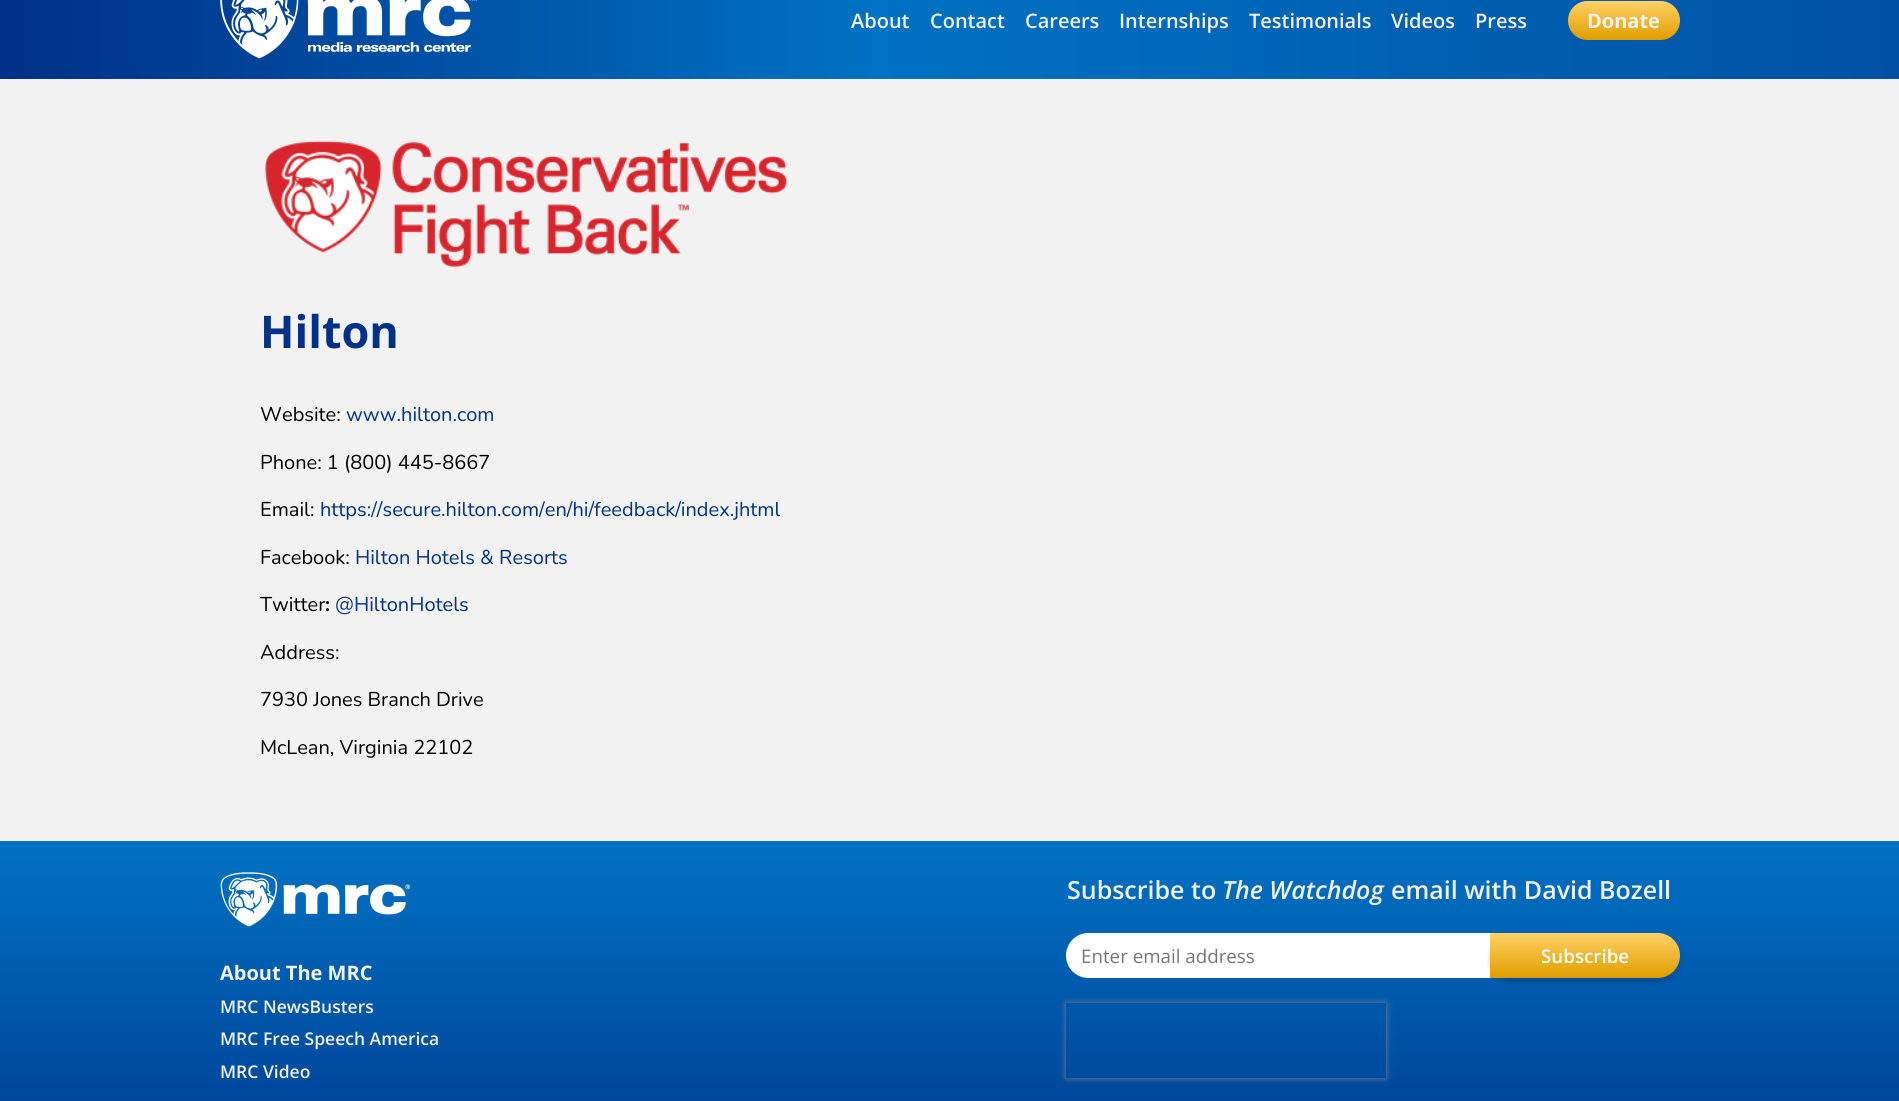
import math
import cairo



def rounded_rect(context, x, y, w, h, r):
    context.new_sub_path()
    for i, (u, v) in enumerate([(x + w - r, y + h - r), (x + r, y + h - r), (x + r, y + r), (x + w - r, y + r)]):
        context.arc(u, v, r, i * math.pi / 2, (i + 1) * math.pi / 2)
    context.close_path()


def draw_shadow(context, x, y, w, h, r, blur, alpha):
    context.push_group_with_content(cairo.Content.ALPHA)
    context.set_operator(cairo.Operator.SOURCE)
    for i in range(15, -16, -2):
        e = blur * i / 6
        if min(w, h) + 2 * e > 0:
            context.set_source_rgba(0, 0, 0, alpha * math.erfc((i - 1) / 8.5) / 2)
            rounded_rect(context, x - e, y - e, w + 2 * e, h + 2 * e, max(0, min(r + e + blur * .6, min(w, h) / 2 + e)))
            context.fill()
    context.mask(context.pop_group())


def draw_image(context, path, x, y, w, h):
    context.save()
    context.set_source_surface(cairo.ImageSurface.create_from_png(path), x, y)
    context.rectangle(x, y, w, h)
    context.fill()
    context.restore()


def draw(context):
    context.set_source_rgb(242 / 255, 242 / 255, 242 / 255)
    context.paint()
    gradient = cairo.LinearGradient(0, 21, 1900, 21)
    gradient.add_color_stop_rgba(0, 0, 48 / 255, 135 / 255, 1)
    gradient.add_color_stop_rgba(0.46, 0, 114 / 255, 195 / 255, 1)
    gradient.add_color_stop_rgba(1, 0, 81 / 255, 165 / 255, 1)
    context.set_source(gradient)
    context.rectangle(0, 0, 1899, 79)
    context.fill()
    draw_image(context, "images/1.png", 220, 0, 258, 59)
    gradient = cairo.LinearGradient(1624, 40, 1624, 1.2)
    gradient.add_color_stop_rgba(0, 224 / 255, 157 / 255, 0, 1)
    gradient.add_color_stop_rgba(1, 1, 209 / 255, 101 / 255, 1)
    context.set_source(gradient)
    rounded_rect(context, 1568, 1, 112, 39, 19.5)
    context.fill()
    draw_image(context, "images/2.png", 264, 140, 523, 128)
    gradient = cairo.LinearGradient(950, 841, 950, 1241)
    gradient.add_color_stop_rgba(0, 0, 114 / 255, 195 / 255, 1)
    gradient.add_color_stop_rgba(1, 0, 48 / 255, 135 / 255, 1)
    context.set_source(gradient)
    context.rectangle(0, 841, 1899, 260)
    context.fill()
    context.set_source_rgb(1, 1, 1)
    context.new_path()
    context.move_to(1088.5, 933)
    context.line_to(1490, 933)
    context.line_to(1490, 978)
    context.line_to(1088.5, 978)
    context.curve_to(1076, 978, 1066, 968, 1066, 955.5)
    context.curve_to(1066, 943, 1076, 933, 1088.5, 933)
    context.close_path()
    context.fill()
    context.set_source_rgb(0, 0, 0)
    draw_shadow(context, 1490, 938, 190, 45, 22.5, 2.5, 0.15)
    gradient = cairo.LinearGradient(1585, 978, 1585, 933)
    gradient.add_color_stop_rgba(0, 224 / 255, 157 / 255, 0, 1)
    gradient.add_color_stop_rgba(1, 1, 209 / 255, 101 / 255, 1)
    context.set_source(gradient)
    context.new_path()
    context.move_to(1490, 933)
    context.line_to(1657.5, 933)
    context.curve_to(1670, 933, 1680, 943, 1680, 955.5)
    context.curve_to(1680, 968, 1670, 978, 1657.5, 978)
    context.line_to(1490, 978)
    context.close_path()
    context.fill()
    context.save()
    context.set_fill_rule(cairo.FillRule.EVEN_ODD)
    context.new_path()
    context.move_to(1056, 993)
    context.line_to(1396, 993)
    context.line_to(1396, 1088)
    context.line_to(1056, 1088)
    context.close_path()
    context.move_to(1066, 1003)
    context.line_to(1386, 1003)
    context.line_to(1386, 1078)
    context.line_to(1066, 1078)
    context.close_path()
    context.clip()
    context.set_source_rgb(128 / 255, 128 / 255, 128 / 255)
    draw_shadow(context, 1066, 1003, 320, 75, 0, 3, 1)
    context.restore()
    draw_image(context, "images/3.png", 220, 872, 191, 55)
    context.select_font_face("Open Sans SemiBold")
    context.set_font_size(20)
    context.set_source_rgb(242 / 255, 242 / 255, 242 / 255)
    context.move_to(851, 28)
    context.show_text("About")
    context.move_to(930, 28)
    context.show_text("Contact")
    context.move_to(1025, 28)
    context.show_text("Careers")
    context.move_to(1119, 28)
    context.show_text("Internships")
    context.move_to(1249, 28)
    context.show_text("Testimonials")
    context.move_to(1391, 28)
    context.show_text("Videos")
    context.move_to(1475, 28)
    context.show_text("Press")
    context.select_font_face("Open Sans", cairo.FontSlant.NORMAL, cairo.FontWeight.BOLD)
    context.move_to(1587, 28)
    context.show_text("Donate")
    context.set_font_size(45)
    context.set_source_rgb(0, 48 / 255, 135 / 255)
    context.move_to(260, 348)
    context.show_text("Hilton")
    context.select_font_face("Nunito")
    context.set_font_size(20)
    context.set_source_rgb(0, 0, 0)
    context.move_to(260, 421)
    context.show_text("Website:")
    context.set_source_rgb(0, 48 / 255, 135 / 255)
    context.move_to(346, 421)
    context.show_text("www.hilton.com")
    context.set_source_rgb(0, 0, 0)
    context.move_to(260, 469)
    context.show_text("Phone: 1 (800) 445-8667")
    context.move_to(260, 516)
    context.show_text("Email:")
    context.set_source_rgb(0, 48 / 255, 135 / 255)
    context.move_to(320, 516)
    context.show_text("https://secure.hilton.com/en/hi/feedback/index.jhtml")
    context.set_source_rgb(0, 0, 0)
    context.move_to(260, 564)
    context.show_text("Facebook:")
    context.set_source_rgb(0, 48 / 255, 135 / 255)
    context.move_to(355, 564)
    context.show_text("Hilton Hotels & Resorts")
    context.set_source_rgb(0, 0, 0)
    context.move_to(260, 611)
    context.show_text("Twitter")
    context.select_font_face("Nunito", cairo.FontSlant.NORMAL, cairo.FontWeight.BOLD)
    context.move_to(325, 611)
    context.show_text(":")
    context.select_font_face("Nunito")
    context.set_source_rgb(0, 48 / 255, 135 / 255)
    context.move_to(335, 611)
    context.show_text("@HiltonHotels")
    context.set_source_rgb(0, 0, 0)
    context.move_to(260, 659)
    context.show_text("Address:")
    context.move_to(260, 706)
    context.show_text("7930 Jones Branch Drive")
    context.move_to(260, 754)
    context.show_text("McLean, Virginia 22102")
    context.select_font_face("Open Sans SemiBold")
    context.set_font_size(25)
    context.set_source_rgb(242 / 255, 242 / 255, 242 / 255)
    context.move_to(1067, 899)
    context.show_text("Subscribe to")
    context.select_font_face("Open Sans SemiBold", cairo.FontSlant.ITALIC)
    context.move_to(1222, 899)
    context.show_text("The Watchdog")
    context.select_font_face("Open Sans SemiBold")
    context.move_to(1391, 899)
    context.show_text("email with David Bozell")
    context.select_font_face("Open Sans")
    context.set_font_size(18.75)
    context.set_source_rgb(117 / 255, 117 / 255, 117 / 255)
    context.move_to(1081, 963)
    context.show_text("Enter email address")
    context.select_font_face("Open Sans SemiBold")
    context.set_source_rgb(1, 1, 1)
    context.move_to(1541, 963)
    context.show_text("Subscribe")
    context.select_font_face("Open Sans", cairo.FontSlant.NORMAL, cairo.FontWeight.BOLD)
    context.set_font_size(20)
    context.set_source_rgb(242 / 255, 242 / 255, 242 / 255)
    context.move_to(220, 980)
    context.show_text("About The MRC")
    context.select_font_face("Open Sans SemiBold")
    context.set_font_size(17.5)
    context.move_to(220, 1013)
    context.show_text("MRC NewsBusters")
    context.move_to(220, 1045)
    context.show_text("MRC Free Speech America")
    context.move_to(220, 1078)
    context.show_text("MRC Video")


surface = cairo.ImageSurface(cairo.Format.RGB24, 1899, 1101)
context = cairo.Context(surface)
options = cairo.FontOptions()
options.set_hint_metrics(cairo.HintMetrics.OFF)
options.set_hint_style(cairo.HintStyle.NONE)
context.set_font_options(options)
context.set_miter_limit(4)
draw(context)
surface.write_to_png("out.png")
